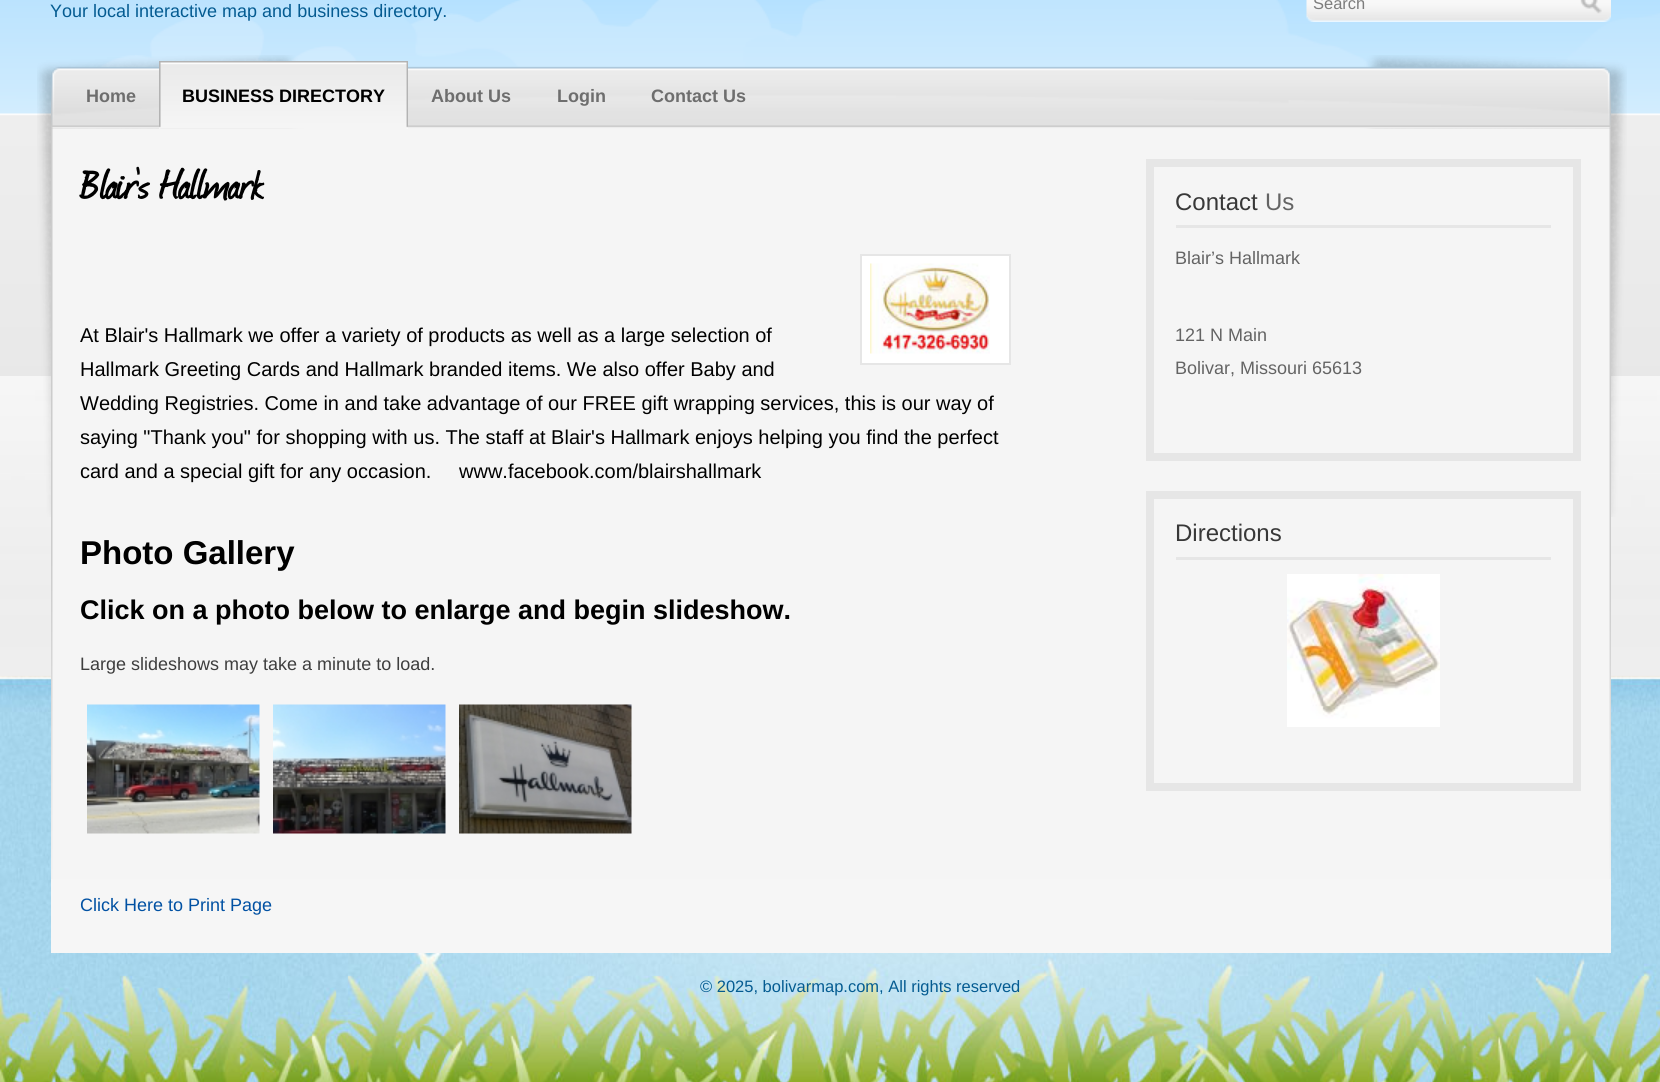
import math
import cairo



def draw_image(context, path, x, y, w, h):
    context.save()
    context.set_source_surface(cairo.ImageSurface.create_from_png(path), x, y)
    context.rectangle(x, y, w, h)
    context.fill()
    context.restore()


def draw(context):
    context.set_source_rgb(1, 1, 1)
    context.paint()
    draw_image(context, "images/1.png", 0, 0, 1660, 376)
    draw_image(context, "images/2.png", 0, 376, 1660, 706)
    draw_image(context, "images/3.png", 37, 55, 1590, 462)
    draw_image(context, "images/4.png", 1306, 0, 305, 22)
    draw_image(context, "images/5.png", 1580, 0, 22, 14)
    draw_image(context, "images/9.png", 51, 128, 1560, 751)
    draw_image(context, "images/6.png", 51, 66, 1560, 63)
    draw_image(context, "images/7.png", 159, 61, 249, 68)
    draw_image(context, "images/8.png", 406, 62, 2, 67)
    context.set_source_rgb(246 / 255, 246 / 255, 246 / 255)
    context.rectangle(51, 879, 1560, 74)
    context.fill()
    context.set_source_rgb(1, 1, 1)
    context.rectangle(861, 255, 149, 109)
    context.fill_preserve()
    context.set_source_rgb(230 / 255, 230 / 255, 230 / 255)
    context.stroke()
    draw_image(context, "images/10.png", 870, 263, 120, 91)
    draw_image(context, "images/11.png", 87, 704, 173, 130)
    draw_image(context, "images/12.png", 273, 704, 173, 130)
    draw_image(context, "images/13.png", 459, 704, 173, 130)
    context.rectangle(1150, 163, 427, 294)
    context.set_line_width(8)
    context.stroke()
    context.rectangle(1176, 225, 375, 3)
    context.fill()
    context.rectangle(1150, 495, 427, 292)
    context.stroke()
    context.rectangle(1176, 557, 375, 3)
    context.fill()
    draw_image(context, "images/14.png", 1287, 574, 153, 153)
    context.select_font_face("Liberation Sans")
    context.set_font_size(18)
    context.set_source_rgb(4 / 255, 91 / 255, 145 / 255)
    context.move_to(50, 17)
    context.show_text("Your local interactive map and business directory.")
    context.set_font_size(16.5)
    context.set_source_rgb(125 / 255, 125 / 255, 125 / 255)
    context.move_to(1313, 9)
    context.show_text("Search")
    context.select_font_face("Liberation Sans", cairo.FontSlant.NORMAL, cairo.FontWeight.BOLD)
    context.set_font_size(18)
    context.set_source_rgb(110 / 255, 110 / 255, 110 / 255)
    context.move_to(86, 102)
    context.show_text("Home")
    context.set_source_rgb(0, 0, 0)
    context.move_to(182, 102)
    context.show_text("BUSINESS DIRECTORY")
    context.set_source_rgb(110 / 255, 110 / 255, 110 / 255)
    context.move_to(431, 102)
    context.show_text("About Us")
    context.move_to(557, 102)
    context.show_text("Login")
    context.move_to(651, 102)
    context.show_text("Contact Us")
    context.select_font_face("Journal", cairo.FontSlant.NORMAL, cairo.FontWeight.BOLD)
    context.set_font_size(48)
    context.set_source_rgb(0, 0, 0)
    context.move_to(80, 198)
    context.show_text("Blair’s Hallmark")
    context.select_font_face("Liberation Sans")
    context.set_font_size(20)
    context.move_to(80, 342)
    context.show_text("At Blair's Hallmark we offer a variety of products as well as a large selection of")
    context.move_to(80, 376)
    context.show_text("Hallmark Greeting Cards and Hallmark branded items. We also offer Baby and")
    context.move_to(80, 410)
    context.show_text("Wedding Registries. Come in and take advantage of our FREE gift wrapping services, this is our way of")
    context.move_to(80, 444)
    context.show_text("saying \"Thank you\" for shopping with us. The staff at Blair's Hallmark enjoys helping you find the perfect")
    context.move_to(80, 478)
    context.show_text("card and a special gift for any occasion.")
    context.move_to(459, 478)
    context.show_text("www.facebook.com/blairshallmark")
    context.select_font_face("Liberation Sans", cairo.FontSlant.NORMAL, cairo.FontWeight.BOLD)
    context.set_font_size(33)
    context.move_to(80, 564)
    context.show_text("Photo Gallery")
    context.set_font_size(27)
    context.move_to(80, 619)
    context.show_text("Click on a photo below to enlarge and begin slideshow.")
    context.select_font_face("Liberation Sans")
    context.set_font_size(18)
    context.set_source_rgb(62 / 255, 62 / 255, 62 / 255)
    context.move_to(80, 670)
    context.show_text("Large slideshows may take a minute to load.")
    context.set_source_rgb(1 / 255, 81 / 255, 163 / 255)
    context.move_to(80, 911)
    context.show_text("Click Here to Print Page")
    context.set_font_size(24)
    context.set_source_rgb(56 / 255, 56 / 255, 56 / 255)
    context.move_to(1175, 210)
    context.show_text("Contact")
    context.set_source_rgb(100 / 255, 100 / 255, 100 / 255)
    context.move_to(1265, 210)
    context.show_text("Us")
    context.set_font_size(18)
    context.move_to(1175, 264)
    context.show_text("Blair’s Hallmark")
    context.move_to(1175, 341)
    context.show_text("121 N Main")
    context.move_to(1175, 374)
    context.show_text("Bolivar, Missouri 65613")
    context.set_font_size(24)
    context.set_source_rgb(56 / 255, 56 / 255, 56 / 255)
    context.move_to(1175, 541)
    context.show_text("Directions")
    context.set_font_size(16.5)
    context.set_source_rgb(4 / 255, 91 / 255, 145 / 255)
    context.move_to(700, 992)
    context.show_text("© 2025, bolivarmap.com, All rights reserved")


surface = cairo.ImageSurface(cairo.Format.RGB24, 1660, 1082)
context = cairo.Context(surface)
options = cairo.FontOptions()
options.set_hint_metrics(cairo.HintMetrics.OFF)
options.set_hint_style(cairo.HintStyle.NONE)
context.set_font_options(options)
context.set_miter_limit(4)
draw(context)
surface.write_to_png("out.png")
